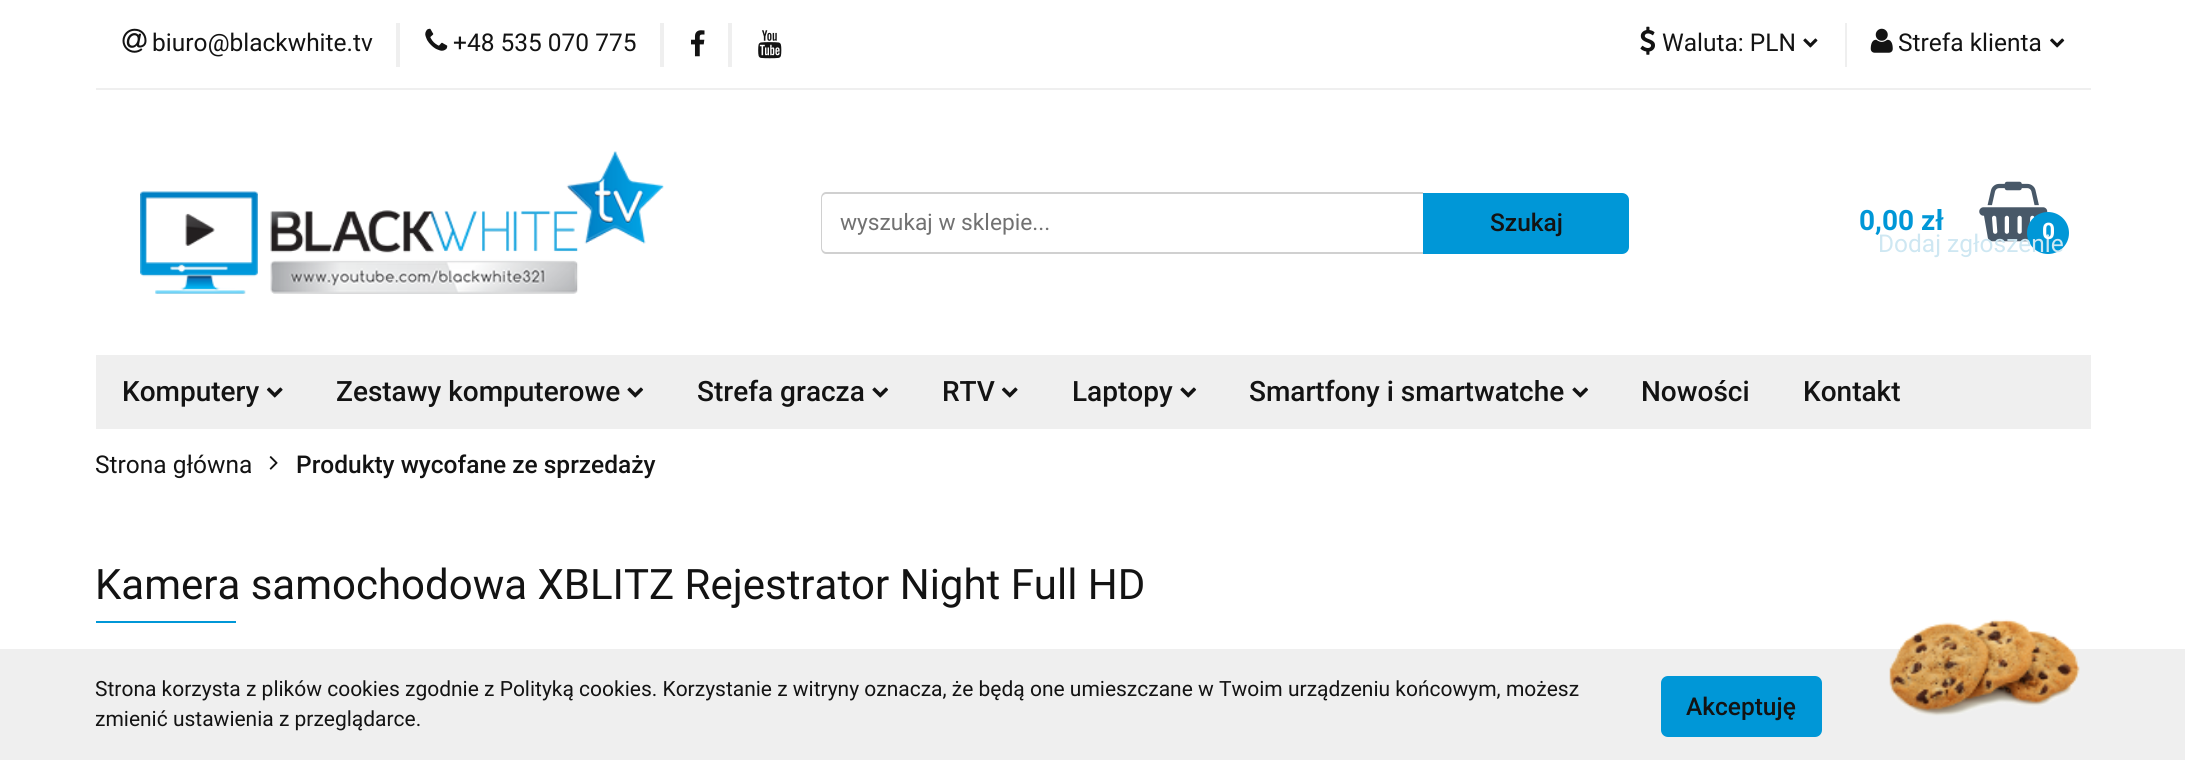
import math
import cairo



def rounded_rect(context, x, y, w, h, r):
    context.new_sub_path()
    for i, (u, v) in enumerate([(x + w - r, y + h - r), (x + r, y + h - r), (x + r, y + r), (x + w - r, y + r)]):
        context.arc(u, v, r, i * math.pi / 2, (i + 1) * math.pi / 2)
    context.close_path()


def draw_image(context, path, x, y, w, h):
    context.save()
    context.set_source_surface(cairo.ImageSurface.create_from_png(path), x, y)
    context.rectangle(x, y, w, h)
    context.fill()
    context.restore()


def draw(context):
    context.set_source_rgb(1, 1, 1)
    context.paint()
    context.set_source_rgb(239 / 255, 239 / 255, 239 / 255)
    context.rectangle(96, 88, 1995, 2)
    context.fill()
    draw_image(context, "images/1.png", 122, 28, 25, 25)
    context.rectangle(396, 23, 4, 44)
    context.fill()
    draw_image(context, "images/2.png", 425, 28, 23, 23)
    context.rectangle(660, 23, 4, 44)
    context.fill()
    draw_image(context, "images/3.png", 691, 30, 14, 27)
    context.rectangle(728, 23, 4, 44)
    context.fill()
    draw_image(context, "images/4.png", 758, 30, 24, 29)
    draw_image(context, "images/5.png", 1640, 26, 15, 29)
    draw_image(context, "images/6.png", 1803, 38, 15, 10)
    context.rectangle(1845, 23, 2, 44)
    context.fill()
    draw_image(context, "images/7.png", 1870, 28, 23, 25)
    draw_image(context, "images/8.png", 2050, 38, 15, 10)
    draw_image(context, "images/9.png", 140, 151, 524, 143)
    context.set_source_rgb(208 / 255, 208 / 255, 208 / 255)
    context.set_fill_rule(cairo.FillRule.EVEN_ODD)
    context.new_path()
    context.move_to(826, 192)
    context.line_to(1423, 192)
    context.line_to(1423, 254)
    context.line_to(826, 254)
    context.curve_to(823, 254, 821, 251, 821, 248)
    context.line_to(821, 198)
    context.curve_to(821, 195, 823, 192, 826, 192)
    context.close_path()
    context.move_to(826, 194)
    context.line_to(1423, 194)
    context.line_to(1423, 252)
    context.line_to(826, 252)
    context.curve_to(824, 252, 822, 250, 822, 248)
    context.line_to(822, 198)
    context.curve_to(822, 196, 824, 194, 826, 194)
    context.close_path()
    context.fill()
    context.set_source_rgb(0, 151 / 255, 215 / 255)
    context.new_path()
    context.move_to(1425.5, 195.5)
    context.line_to(1622, 195.5)
    context.curve_to(1624.5, 195.5, 1626.5, 197.5, 1626.5, 200)
    context.line_to(1626.5, 247)
    context.curve_to(1626.5, 249.5, 1624.5, 251.5, 1622, 251.5)
    context.line_to(1425.5, 251.5)
    context.close_path()
    context.fill_preserve()
    context.set_line_width(5)
    context.stroke()
    draw_image(context, "images/10.png", 1979, 181, 69, 61)
    context.arc(2048, 233, 21, 0, 2 * math.pi)
    context.fill()
    context.set_source_rgb(239 / 255, 239 / 255, 239 / 255)
    context.rectangle(96, 355, 1995, 74)
    context.fill()
    draw_image(context, "images/11.png", 266, 387, 17, 11)
    draw_image(context, "images/12.png", 627, 387, 17, 11)
    draw_image(context, "images/12.png", 872, 387, 17, 11)
    draw_image(context, "images/13.png", 1001, 387, 17, 11)
    draw_image(context, "images/12.png", 1180, 387, 17, 11)
    draw_image(context, "images/12.png", 1572, 387, 17, 11)
    draw_image(context, "images/14.png", 269, 456, 9, 14)
    context.set_source_rgb(0, 151 / 255, 215 / 255)
    context.rectangle(96, 621, 140, 2)
    context.fill()
    context.set_source_rgb(239 / 255, 239 / 255, 239 / 255)
    context.rectangle(0, 649, 2185, 111)
    context.fill()
    context.set_source_rgb(0, 151 / 255, 215 / 255)
    rounded_rect(context, 1663.5, 678.5, 156, 56, 4.5)
    context.fill_preserve()
    context.stroke()
    draw_image(context, "images/15.png", 1889, 619, 191, 97)
    context.select_font_face("Roboto")
    context.set_font_size(24.5)
    context.set_source_rgb(19 / 255, 19 / 255, 19 / 255)
    context.move_to(152, 51)
    context.show_text("biuro@blackwhite.tv")
    context.move_to(453, 51)
    context.show_text("+48 535 070 775")
    context.move_to(1662, 51)
    context.show_text("Waluta: PLN")
    context.move_to(1898, 51)
    context.show_text("Strefa klienta")
    context.set_source_rgb(206 / 255, 231 / 255, 242 / 255)
    context.move_to(1878, 252)
    context.show_text("Dodaj zgłoszenie")
    context.set_font_size(22.75)
    context.set_source_rgb(113 / 255, 113 / 255, 113 / 255)
    context.move_to(840, 230)
    context.show_text("wyszukaj w sklepie...")
    context.select_font_face("Roboto Medium")
    context.set_font_size(24.5)
    context.set_source_rgb(19 / 255, 19 / 255, 19 / 255)
    context.move_to(1490, 231)
    context.show_text("Szukaj")
    context.select_font_face("Roboto", cairo.FontSlant.NORMAL, cairo.FontWeight.BOLD)
    context.set_font_size(28)
    context.set_source_rgb(0, 151 / 255, 215 / 255)
    context.move_to(1859, 230)
    context.show_text("0,00 zł")
    context.set_font_size(22.75)
    context.set_source_rgb(1, 1, 1)
    context.move_to(2042, 239)
    context.show_text("0")
    context.select_font_face("Roboto Medium")
    context.set_font_size(28)
    context.set_source_rgb(19 / 255, 19 / 255, 19 / 255)
    context.move_to(122, 401)
    context.show_text("Komputery")
    context.move_to(336, 401)
    context.show_text("Zestawy komputerowe")
    context.move_to(697, 401)
    context.show_text("Strefa gracza")
    context.move_to(942, 401)
    context.show_text("RTV")
    context.move_to(1072, 401)
    context.show_text("Laptopy")
    context.move_to(1249, 401)
    context.show_text("Smartfony i smartwatche")
    context.move_to(1641, 401)
    context.show_text("Nowości")
    context.move_to(1803, 401)
    context.show_text("Kontakt")
    context.select_font_face("Roboto")
    context.set_font_size(24.5)
    context.move_to(95, 473)
    context.show_text("Strona główna")
    context.select_font_face("Roboto Medium")
    context.move_to(296, 473)
    context.show_text("Produkty wycofane ze sprzedaży")
    context.select_font_face("Roboto")
    context.set_font_size(42)
    context.move_to(95, 599)
    context.show_text("Kamera samochodowa XBLITZ Rejestrator Night Full HD")
    context.set_font_size(21)
    context.move_to(95, 696)
    context.show_text("Strona korzysta z plików cookies zgodnie z Polityką cookies. Korzystanie z witryny oznacza, że będą one umieszczane w Twoim urządzeniu końcowym, możesz")
    context.move_to(95, 726)
    context.show_text("zmienić ustawienia z przeglądarce.")
    context.select_font_face("Roboto Medium")
    context.set_font_size(24.5)
    context.move_to(1686, 715)
    context.show_text("Akceptuję")


surface = cairo.ImageSurface(cairo.Format.RGB24, 2185, 760)
context = cairo.Context(surface)
options = cairo.FontOptions()
options.set_hint_metrics(cairo.HintMetrics.OFF)
options.set_hint_style(cairo.HintStyle.NONE)
context.set_font_options(options)
context.set_miter_limit(4)
draw(context)
surface.write_to_png("out.png")
